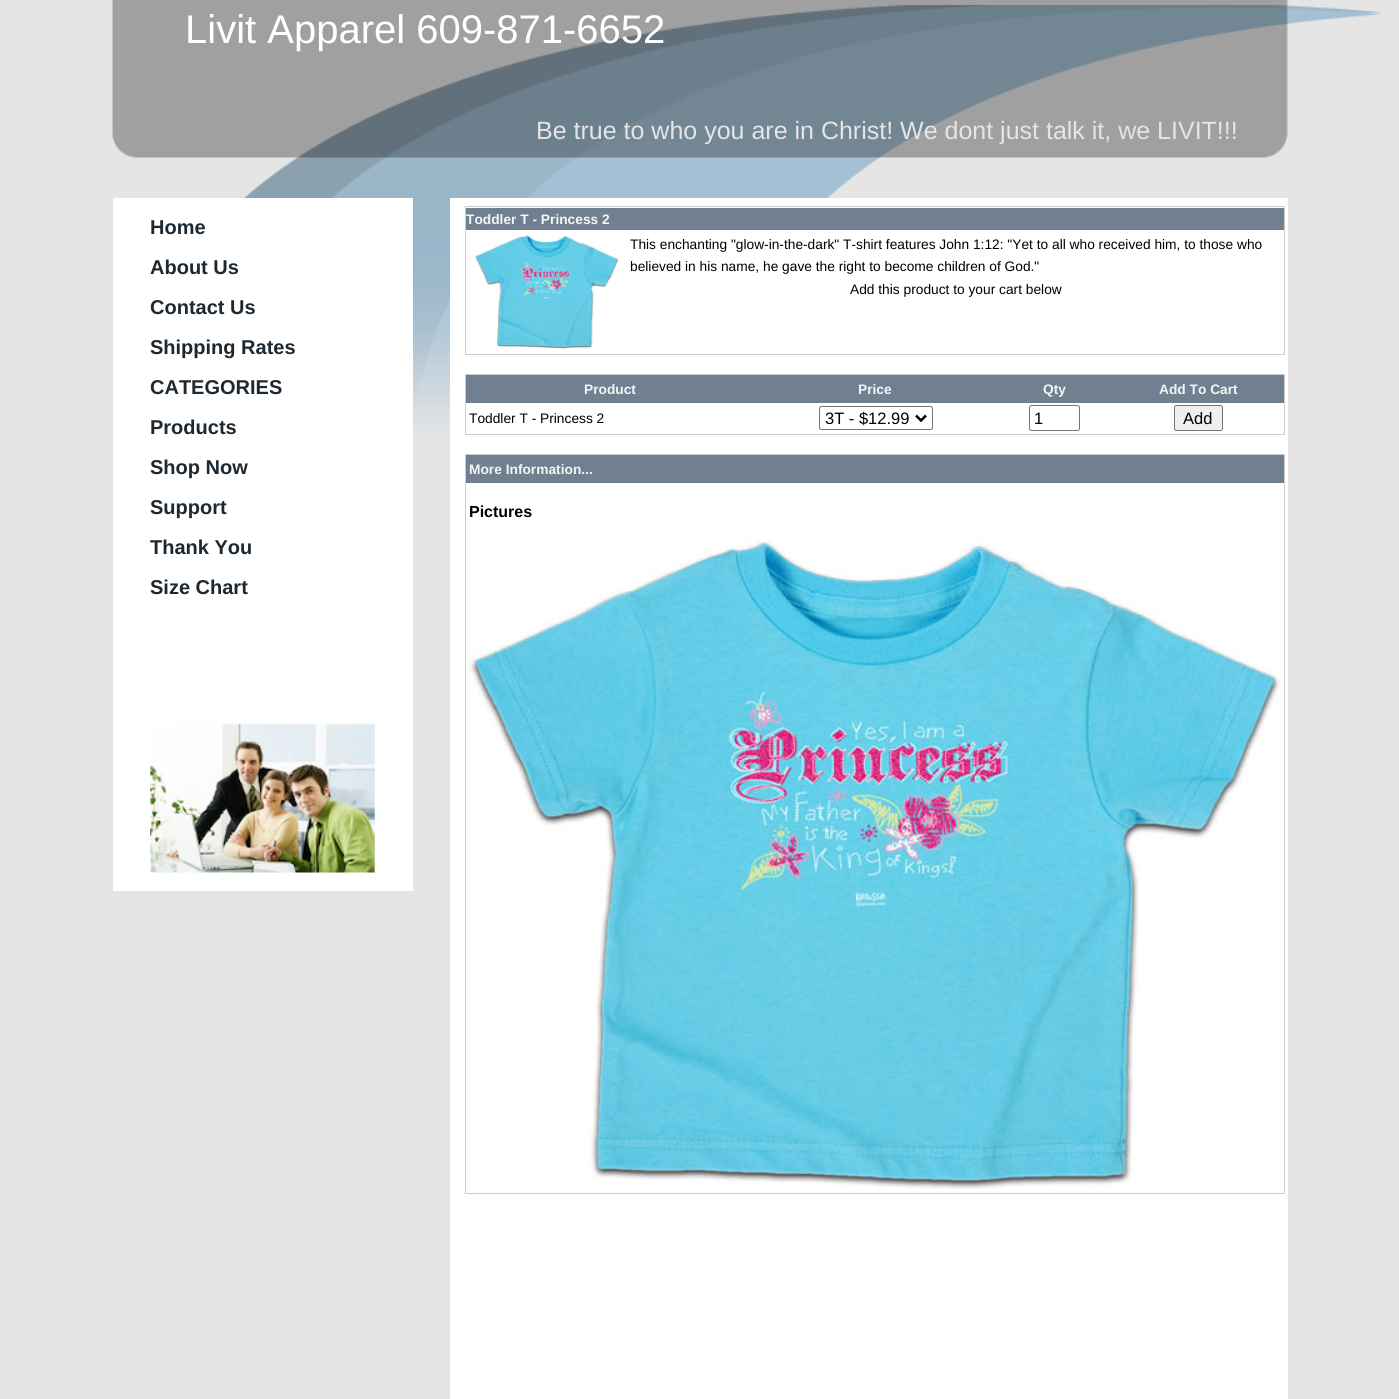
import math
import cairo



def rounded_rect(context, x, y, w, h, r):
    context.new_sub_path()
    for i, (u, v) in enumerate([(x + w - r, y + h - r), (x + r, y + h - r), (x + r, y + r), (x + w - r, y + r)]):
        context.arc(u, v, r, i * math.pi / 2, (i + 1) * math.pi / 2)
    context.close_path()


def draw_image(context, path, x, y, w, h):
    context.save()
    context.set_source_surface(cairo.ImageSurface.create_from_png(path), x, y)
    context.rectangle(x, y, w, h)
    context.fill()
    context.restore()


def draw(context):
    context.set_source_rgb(229 / 255, 229 / 255, 229 / 255)
    context.paint()
    draw_image(context, "images/1.png", 243, 5, 1139, 427)
    draw_image(context, "images/2.png", 112, 0, 1176, 158)
    context.set_source_rgb(1, 1, 1)
    context.rectangle(113, 198, 300, 693)
    context.fill()
    draw_image(context, "images/3.png", 150, 723, 225, 150)
    context.rectangle(450, 198, 838, 1201)
    context.fill()
    context.rectangle(465.5, 206.5, 819, 148)
    context.set_source_rgb(204 / 255, 204 / 255, 204 / 255)
    context.set_line_width(1)
    context.stroke()
    context.set_source_rgb(112 / 255, 128 / 255, 144 / 255)
    context.rectangle(466, 208, 818, 22)
    context.fill()
    draw_image(context, "images/4.png", 475, 235, 144, 114)
    context.rectangle(465.5, 374.5, 819, 60)
    context.set_source_rgb(204 / 255, 204 / 255, 204 / 255)
    context.stroke()
    context.set_source_rgb(112 / 255, 128 / 255, 144 / 255)
    context.rectangle(466, 375, 818, 28)
    context.fill()
    rounded_rect(context, 819.5, 406.5, 113, 23, 2)
    context.set_source_rgb(118 / 255, 118 / 255, 118 / 255)
    context.stroke()
    context.new_path()
    context.move_to(916, 415.5)
    context.line_to(921, 420.5)
    context.line_to(926, 415.5)
    context.set_source_rgb(0, 0, 0)
    context.set_line_width(2.5)
    context.stroke()
    rounded_rect(context, 1029.5, 405.5, 50, 25, 2)
    context.set_source_rgb(118 / 255, 118 / 255, 118 / 255)
    context.set_line_width(1)
    context.stroke()
    context.set_source_rgb(239 / 255, 239 / 255, 239 / 255)
    rounded_rect(context, 1174.5, 405.5, 48, 25, 2)
    context.fill_preserve()
    context.set_source_rgb(118 / 255, 118 / 255, 118 / 255)
    context.stroke()
    context.rectangle(465.5, 454.5, 819, 739)
    context.set_source_rgb(204 / 255, 204 / 255, 204 / 255)
    context.stroke()
    context.set_source_rgb(112 / 255, 128 / 255, 144 / 255)
    context.rectangle(466, 455, 818, 28)
    context.fill()
    draw_image(context, "images/5.png", 469, 540, 811, 649)
    context.select_font_face("Liberation Sans")
    context.set_font_size(40)
    context.set_source_rgb(1, 1, 1)
    context.move_to(185, 43)
    context.show_text("Livit Apparel 609-871-6652")
    context.set_font_size(25)
    context.set_source_rgb(229 / 255, 229 / 255, 229 / 255)
    context.move_to(536, 139)
    context.show_text("Be true to who you are in Christ! We dont just talk it, we LIVIT!!!")
    context.select_font_face("Liberation Sans", cairo.FontSlant.NORMAL, cairo.FontWeight.BOLD)
    context.set_font_size(20)
    context.set_source_rgb(30 / 255, 40 / 255, 48 / 255)
    context.move_to(150, 234)
    context.show_text("Home")
    context.move_to(150, 274)
    context.show_text("About Us")
    context.move_to(150, 314)
    context.show_text("Contact Us")
    context.move_to(150, 354)
    context.show_text("Shipping Rates")
    context.move_to(150, 394)
    context.show_text("CATEGORIES")
    context.move_to(150, 434)
    context.show_text("Products")
    context.move_to(150, 474)
    context.show_text("Shop Now")
    context.move_to(150, 514)
    context.show_text("Support")
    context.move_to(150, 554)
    context.show_text("Thank You")
    context.move_to(150, 594)
    context.show_text("Size Chart")
    context.set_font_size(13.75)
    context.set_source_rgb(245 / 255, 245 / 255, 245 / 255)
    context.move_to(466, 224)
    context.show_text("Toddler T - Princess 2")
    context.select_font_face("Liberation Sans")
    context.set_source_rgb(0, 0, 0)
    context.move_to(630, 249)
    context.show_text("This enchanting \"glow-in-the-dark\" T-shirt features John 1:12: \"Yet to all who received him, to those who")
    context.move_to(630, 271)
    context.show_text("believed in his name, he gave the right to become children of God.\"")
    context.move_to(850, 294)
    context.show_text("Add this product to your cart below")
    context.select_font_face("Liberation Sans", cairo.FontSlant.NORMAL, cairo.FontWeight.BOLD)
    context.set_source_rgb(245 / 255, 245 / 255, 245 / 255)
    context.move_to(584, 394)
    context.show_text("Product")
    context.move_to(858, 394)
    context.show_text("Price")
    context.move_to(1043, 394)
    context.show_text("Qty")
    context.move_to(1159, 394)
    context.show_text("Add To Cart")
    context.select_font_face("Liberation Sans")
    context.set_source_rgb(0, 0, 0)
    context.move_to(469, 423)
    context.show_text("Toddler T - Princess 2")
    context.set_font_size(16.5)
    context.move_to(825, 424)
    context.show_text("3T - $12.99")
    context.move_to(1034, 424)
    context.show_text("1")
    context.move_to(1183, 424)
    context.show_text("Add")
    context.select_font_face("Liberation Sans", cairo.FontSlant.NORMAL, cairo.FontWeight.BOLD)
    context.set_font_size(13.75)
    context.set_source_rgb(245 / 255, 245 / 255, 245 / 255)
    context.move_to(469, 474)
    context.show_text("More Information...")
    context.set_font_size(16)
    context.set_source_rgb(0, 0, 0)
    context.move_to(469, 517)
    context.show_text("Pictures")


surface = cairo.ImageSurface(cairo.Format.RGB24, 1399, 1399)
context = cairo.Context(surface)
options = cairo.FontOptions()
options.set_hint_metrics(cairo.HintMetrics.OFF)
options.set_hint_style(cairo.HintStyle.NONE)
context.set_font_options(options)
context.set_miter_limit(4)
draw(context)
surface.write_to_png("out.png")
